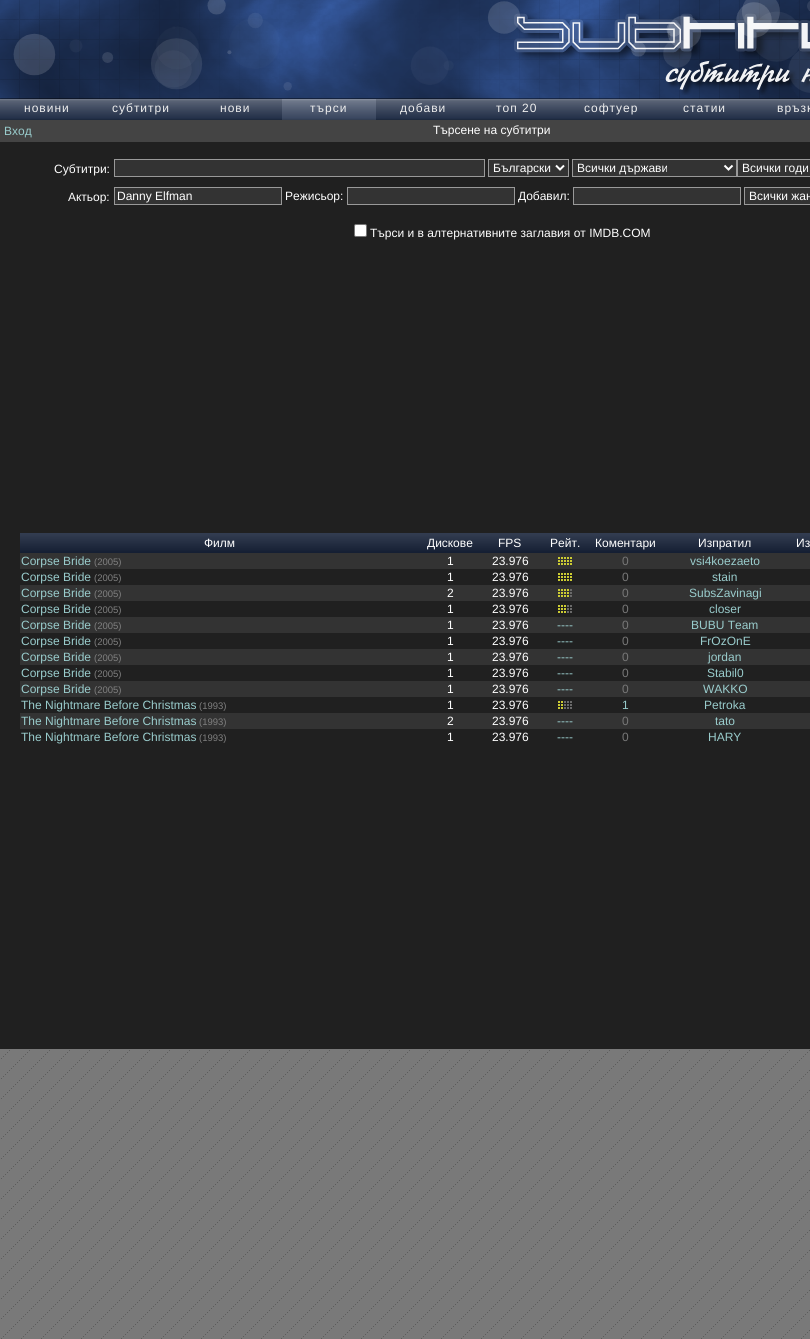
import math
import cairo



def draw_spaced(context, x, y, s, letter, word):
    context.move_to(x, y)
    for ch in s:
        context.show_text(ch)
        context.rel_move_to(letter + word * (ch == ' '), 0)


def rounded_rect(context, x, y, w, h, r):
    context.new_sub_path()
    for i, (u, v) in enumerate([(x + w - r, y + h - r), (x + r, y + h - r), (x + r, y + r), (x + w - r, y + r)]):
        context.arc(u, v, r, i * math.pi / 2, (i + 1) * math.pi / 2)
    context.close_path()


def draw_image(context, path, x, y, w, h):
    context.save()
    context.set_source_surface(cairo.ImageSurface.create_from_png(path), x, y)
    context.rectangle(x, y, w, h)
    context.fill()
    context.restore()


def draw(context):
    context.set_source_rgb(1, 1, 1)
    context.paint()
    draw_image(context, "images/1.png", 0, 1049, 810, 290)
    draw_image(context, "images/2.png", 0, 0, 810, 99)
    draw_image(context, "images/4.png", 514, 13, 296, 82)
    draw_image(context, "images/3.png", 13, 0, 797, 93)
    draw_image(context, "images/5.png", 0, 99, 810, 21)
    draw_image(context, "images/6.png", 282, 99, 94, 21)
    context.set_source_rgb(68 / 255, 68 / 255, 68 / 255)
    context.rectangle(0, 120, 810, 22)
    context.fill()
    context.set_source_rgb(32 / 255, 32 / 255, 32 / 255)
    context.rectangle(0, 142, 810, 907)
    context.fill()
    context.set_source_rgb(51 / 255, 51 / 255, 51 / 255)
    context.rectangle(114.5, 159.5, 370, 17)
    context.fill_preserve()
    context.set_source_rgb(153 / 255, 153 / 255, 153 / 255)
    context.set_line_width(1)
    context.stroke()
    context.set_source_rgb(51 / 255, 51 / 255, 51 / 255)
    context.rectangle(488.5, 159.5, 80, 17)
    context.fill_preserve()
    context.set_source_rgb(153 / 255, 153 / 255, 153 / 255)
    context.stroke()
    context.new_path()
    context.move_to(556, 165.5)
    context.line_to(560, 169.5)
    context.line_to(564, 165.5)
    context.set_source_rgb(1, 1, 1)
    context.set_line_width(2)
    context.stroke()
    context.set_source_rgb(51 / 255, 51 / 255, 51 / 255)
    context.rectangle(572.5, 159.5, 164, 17)
    context.fill_preserve()
    context.set_source_rgb(153 / 255, 153 / 255, 153 / 255)
    context.set_line_width(1)
    context.stroke()
    context.new_path()
    context.move_to(724.5, 165.5)
    context.line_to(728.5, 169.5)
    context.line_to(732.5, 165.5)
    context.set_source_rgb(1, 1, 1)
    context.set_line_width(2)
    context.stroke()
    context.set_source_rgb(51 / 255, 51 / 255, 51 / 255)
    context.rectangle(737.5, 159.5, 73, 17)
    context.fill_preserve()
    context.set_source_rgb(153 / 255, 153 / 255, 153 / 255)
    context.set_line_width(1)
    context.stroke()
    context.set_source_rgb(51 / 255, 51 / 255, 51 / 255)
    context.rectangle(114.5, 187.5, 167, 17)
    context.fill_preserve()
    context.set_source_rgb(153 / 255, 153 / 255, 153 / 255)
    context.stroke()
    context.set_source_rgb(51 / 255, 51 / 255, 51 / 255)
    context.rectangle(347.5, 187.5, 167, 17)
    context.fill_preserve()
    context.set_source_rgb(153 / 255, 153 / 255, 153 / 255)
    context.stroke()
    context.set_source_rgb(51 / 255, 51 / 255, 51 / 255)
    context.rectangle(573.5, 187.5, 167, 17)
    context.fill_preserve()
    context.set_source_rgb(153 / 255, 153 / 255, 153 / 255)
    context.stroke()
    context.set_source_rgb(51 / 255, 51 / 255, 51 / 255)
    context.rectangle(744.5, 187.5, 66, 17)
    context.fill_preserve()
    context.set_source_rgb(153 / 255, 153 / 255, 153 / 255)
    context.stroke()
    context.set_source_rgb(1, 1, 1)
    rounded_rect(context, 354.5, 224.5, 12, 12, 1.5)
    context.fill_preserve()
    context.set_source_rgb(118 / 255, 118 / 255, 118 / 255)
    context.stroke()
    gradient = cairo.LinearGradient(20, 533, 20, 553)
    gradient.add_color_stop_rgba(0.05, 50 / 255, 60 / 255, 80 / 255, 1)
    gradient.add_color_stop_rgba(1, 20 / 255, 30 / 255, 50 / 255, 1)
    context.set_source(gradient)
    context.rectangle(20, 533, 400, 20)
    context.fill()
    gradient = cairo.LinearGradient(420, 533, 420, 553)
    gradient.add_color_stop_rgba(0.05, 50 / 255, 60 / 255, 80 / 255, 1)
    gradient.add_color_stop_rgba(1, 20 / 255, 30 / 255, 50 / 255, 1)
    context.set_source(gradient)
    context.rectangle(420, 533, 60, 20)
    context.fill()
    gradient = cairo.LinearGradient(480, 533, 480, 553)
    gradient.add_color_stop_rgba(0.05, 50 / 255, 60 / 255, 80 / 255, 1)
    gradient.add_color_stop_rgba(1, 20 / 255, 30 / 255, 50 / 255, 1)
    context.set_source(gradient)
    context.rectangle(480, 533, 60, 20)
    context.fill()
    gradient = cairo.LinearGradient(540, 533, 540, 553)
    gradient.add_color_stop_rgba(0.05, 50 / 255, 60 / 255, 80 / 255, 1)
    gradient.add_color_stop_rgba(1, 20 / 255, 30 / 255, 50 / 255, 1)
    context.set_source(gradient)
    context.rectangle(540, 533, 50, 20)
    context.fill()
    gradient = cairo.LinearGradient(590, 533, 590, 553)
    gradient.add_color_stop_rgba(0.05, 50 / 255, 60 / 255, 80 / 255, 1)
    gradient.add_color_stop_rgba(1, 20 / 255, 30 / 255, 50 / 255, 1)
    context.set_source(gradient)
    context.rectangle(590, 533, 70, 20)
    context.fill()
    gradient = cairo.LinearGradient(660, 533, 660, 553)
    gradient.add_color_stop_rgba(0.05, 50 / 255, 60 / 255, 80 / 255, 1)
    gradient.add_color_stop_rgba(1, 20 / 255, 30 / 255, 50 / 255, 1)
    context.set_source(gradient)
    context.rectangle(660, 533, 130, 20)
    context.fill()
    gradient = cairo.LinearGradient(790, 533, 790, 553)
    gradient.add_color_stop_rgba(0.05, 50 / 255, 60 / 255, 80 / 255, 1)
    gradient.add_color_stop_rgba(1, 20 / 255, 30 / 255, 50 / 255, 1)
    context.set_source(gradient)
    context.rectangle(790, 533, 20, 20)
    context.fill()
    context.set_source_rgb(51 / 255, 51 / 255, 51 / 255)
    context.rectangle(20, 553, 790, 16)
    context.fill()
    draw_image(context, "images/7.png", 558, 557, 14, 8)
    draw_image(context, "images/8.png", 558, 573, 14, 8)
    context.rectangle(20, 585, 790, 16)
    context.fill()
    draw_image(context, "images/9.png", 558, 589, 14, 8)
    draw_image(context, "images/10.png", 558, 605, 14, 8)
    context.rectangle(20, 617, 790, 16)
    context.fill()
    context.rectangle(20, 649, 790, 16)
    context.fill()
    context.rectangle(20, 681, 790, 16)
    context.fill()
    draw_image(context, "images/11.png", 558, 701, 14, 8)
    context.rectangle(20, 713, 790, 16)
    context.fill()
    context.select_font_face("Liberation Sans")
    context.set_font_size(12)
    context.set_source_rgb(238 / 255, 238 / 255, 238 / 255)
    draw_spaced(context, 24, 112, "новини", 1, 0)
    draw_spaced(context, 112, 112, "субтитри", 1, 0)
    draw_spaced(context, 220, 112, "нови", 1, 0)
    draw_spaced(context, 400, 112, "добави", 1, 0)
    draw_spaced(context, 496, 112, "топ 20", 1, 0)
    draw_spaced(context, 584, 112, "софтуер", 1, 0)
    draw_spaced(context, 310, 112, "търси", 1, 0)
    draw_spaced(context, 683, 112, "статии", 1, 0)
    draw_spaced(context, 777, 112, "връзк", 1, 0)
    context.set_source_rgb(153 / 255, 204 / 255, 204 / 255)
    context.move_to(4, 135)
    context.show_text("Вход")
    context.set_source_rgb(1, 1, 1)
    context.move_to(433, 134)
    context.show_text("Търсене на субтитри")
    context.move_to(54, 173)
    context.show_text("Субтитри:")
    context.move_to(493, 172)
    context.show_text("Български")
    context.move_to(577, 172)
    context.show_text("Всички държави")
    context.move_to(742, 172)
    context.show_text("Всички годи")
    context.move_to(68, 201)
    context.show_text("Актьор:")
    context.move_to(117, 200)
    context.show_text("Danny Elfman")
    context.move_to(285, 200)
    context.show_text("Режисьор:")
    context.move_to(518, 200)
    context.show_text("Добавил:")
    context.move_to(749, 200)
    context.show_text("Всички жан")
    context.move_to(370, 237)
    context.show_text("Търси и в алтернативните заглавия от IMDB.COM")
    context.move_to(204, 547)
    context.show_text("Филм")
    context.move_to(427, 547)
    context.show_text("Дискове")
    context.move_to(498, 547)
    context.show_text("FPS")
    context.move_to(550, 547)
    context.show_text("Рейт.")
    context.move_to(595, 547)
    context.show_text("Коментари")
    context.move_to(698, 547)
    context.show_text("Изпратил")
    context.move_to(796, 547)
    context.show_text("Из")
    context.set_source_rgb(153 / 255, 204 / 255, 204 / 255)
    context.move_to(21, 565)
    context.show_text("Corpse Bride")
    context.set_font_size(9.5)
    context.set_source_rgb(128 / 255, 128 / 255, 128 / 255)
    context.move_to(94, 565)
    context.show_text("(2005)")
    context.set_font_size(12)
    context.set_source_rgb(1, 1, 1)
    context.move_to(447, 565)
    context.show_text("1")
    context.move_to(492, 565)
    context.show_text("23.976")
    context.set_source_rgb(119 / 255, 119 / 255, 119 / 255)
    context.move_to(622, 565)
    context.show_text("0")
    context.set_source_rgb(153 / 255, 204 / 255, 204 / 255)
    context.move_to(690, 565)
    context.show_text("vsi4koezaeto")
    context.move_to(21, 581)
    context.show_text("Corpse Bride")
    context.set_font_size(9.5)
    context.set_source_rgb(128 / 255, 128 / 255, 128 / 255)
    context.move_to(94, 581)
    context.show_text("(2005)")
    context.set_font_size(12)
    context.set_source_rgb(1, 1, 1)
    context.move_to(447, 581)
    context.show_text("1")
    context.move_to(492, 581)
    context.show_text("23.976")
    context.set_source_rgb(119 / 255, 119 / 255, 119 / 255)
    context.move_to(622, 581)
    context.show_text("0")
    context.set_source_rgb(153 / 255, 204 / 255, 204 / 255)
    context.move_to(712, 581)
    context.show_text("stain")
    context.move_to(21, 597)
    context.show_text("Corpse Bride")
    context.set_font_size(9.5)
    context.set_source_rgb(128 / 255, 128 / 255, 128 / 255)
    context.move_to(94, 597)
    context.show_text("(2005)")
    context.set_font_size(12)
    context.set_source_rgb(1, 1, 1)
    context.move_to(447, 597)
    context.show_text("2")
    context.move_to(492, 597)
    context.show_text("23.976")
    context.set_source_rgb(119 / 255, 119 / 255, 119 / 255)
    context.move_to(622, 597)
    context.show_text("0")
    context.set_source_rgb(153 / 255, 204 / 255, 204 / 255)
    context.move_to(689, 597)
    context.show_text("SubsZavinagi")
    context.move_to(21, 613)
    context.show_text("Corpse Bride")
    context.set_font_size(9.5)
    context.set_source_rgb(128 / 255, 128 / 255, 128 / 255)
    context.move_to(94, 613)
    context.show_text("(2005)")
    context.set_font_size(12)
    context.set_source_rgb(1, 1, 1)
    context.move_to(447, 613)
    context.show_text("1")
    context.move_to(492, 613)
    context.show_text("23.976")
    context.set_source_rgb(119 / 255, 119 / 255, 119 / 255)
    context.move_to(622, 613)
    context.show_text("0")
    context.set_source_rgb(153 / 255, 204 / 255, 204 / 255)
    context.move_to(709, 613)
    context.show_text("closer")
    context.move_to(21, 629)
    context.show_text("Corpse Bride")
    context.set_font_size(9.5)
    context.set_source_rgb(128 / 255, 128 / 255, 128 / 255)
    context.move_to(94, 629)
    context.show_text("(2005)")
    context.set_font_size(12)
    context.set_source_rgb(1, 1, 1)
    context.move_to(447, 629)
    context.show_text("1")
    context.move_to(492, 629)
    context.show_text("23.976")
    context.set_source_rgb(153 / 255, 204 / 255, 204 / 255)
    context.move_to(557, 629)
    context.show_text("----")
    context.set_source_rgb(119 / 255, 119 / 255, 119 / 255)
    context.move_to(622, 629)
    context.show_text("0")
    context.set_source_rgb(153 / 255, 204 / 255, 204 / 255)
    context.move_to(691, 629)
    context.show_text("BUBU Team")
    context.move_to(21, 645)
    context.show_text("Corpse Bride")
    context.set_font_size(9.5)
    context.set_source_rgb(128 / 255, 128 / 255, 128 / 255)
    context.move_to(94, 645)
    context.show_text("(2005)")
    context.set_font_size(12)
    context.set_source_rgb(1, 1, 1)
    context.move_to(447, 645)
    context.show_text("1")
    context.move_to(492, 645)
    context.show_text("23.976")
    context.set_source_rgb(153 / 255, 204 / 255, 204 / 255)
    context.move_to(557, 645)
    context.show_text("----")
    context.set_source_rgb(119 / 255, 119 / 255, 119 / 255)
    context.move_to(622, 645)
    context.show_text("0")
    context.set_source_rgb(153 / 255, 204 / 255, 204 / 255)
    context.move_to(700, 645)
    context.show_text("FrOzOnE")
    context.move_to(21, 661)
    context.show_text("Corpse Bride")
    context.set_font_size(9.5)
    context.set_source_rgb(128 / 255, 128 / 255, 128 / 255)
    context.move_to(94, 661)
    context.show_text("(2005)")
    context.set_font_size(12)
    context.set_source_rgb(1, 1, 1)
    context.move_to(447, 661)
    context.show_text("1")
    context.move_to(492, 661)
    context.show_text("23.976")
    context.set_source_rgb(153 / 255, 204 / 255, 204 / 255)
    context.move_to(557, 661)
    context.show_text("----")
    context.set_source_rgb(119 / 255, 119 / 255, 119 / 255)
    context.move_to(622, 661)
    context.show_text("0")
    context.set_source_rgb(153 / 255, 204 / 255, 204 / 255)
    context.move_to(708, 661)
    context.show_text("jordan")
    context.move_to(21, 677)
    context.show_text("Corpse Bride")
    context.set_font_size(9.5)
    context.set_source_rgb(128 / 255, 128 / 255, 128 / 255)
    context.move_to(94, 677)
    context.show_text("(2005)")
    context.set_font_size(12)
    context.set_source_rgb(1, 1, 1)
    context.move_to(447, 677)
    context.show_text("1")
    context.move_to(492, 677)
    context.show_text("23.976")
    context.set_source_rgb(153 / 255, 204 / 255, 204 / 255)
    context.move_to(557, 677)
    context.show_text("----")
    context.set_source_rgb(119 / 255, 119 / 255, 119 / 255)
    context.move_to(622, 677)
    context.show_text("0")
    context.set_source_rgb(153 / 255, 204 / 255, 204 / 255)
    context.move_to(707, 677)
    context.show_text("Stabil0")
    context.move_to(21, 693)
    context.show_text("Corpse Bride")
    context.set_font_size(9.5)
    context.set_source_rgb(128 / 255, 128 / 255, 128 / 255)
    context.move_to(94, 693)
    context.show_text("(2005)")
    context.set_font_size(12)
    context.set_source_rgb(1, 1, 1)
    context.move_to(447, 693)
    context.show_text("1")
    context.move_to(492, 693)
    context.show_text("23.976")
    context.set_source_rgb(153 / 255, 204 / 255, 204 / 255)
    context.move_to(557, 693)
    context.show_text("----")
    context.set_source_rgb(119 / 255, 119 / 255, 119 / 255)
    context.move_to(622, 693)
    context.show_text("0")
    context.set_source_rgb(153 / 255, 204 / 255, 204 / 255)
    context.move_to(703, 693)
    context.show_text("WAKKO")
    context.move_to(21, 709)
    context.show_text("The Nightmare Before Christmas")
    context.set_font_size(9.5)
    context.set_source_rgb(128 / 255, 128 / 255, 128 / 255)
    context.move_to(199, 709)
    context.show_text("(1993)")
    context.set_font_size(12)
    context.set_source_rgb(1, 1, 1)
    context.move_to(447, 709)
    context.show_text("1")
    context.move_to(492, 709)
    context.show_text("23.976")
    context.set_source_rgb(153 / 255, 204 / 255, 204 / 255)
    context.move_to(622, 709)
    context.show_text("1")
    context.move_to(704, 709)
    context.show_text("Petroka")
    context.move_to(21, 725)
    context.show_text("The Nightmare Before Christmas")
    context.set_font_size(9.5)
    context.set_source_rgb(128 / 255, 128 / 255, 128 / 255)
    context.move_to(199, 725)
    context.show_text("(1993)")
    context.set_font_size(12)
    context.set_source_rgb(1, 1, 1)
    context.move_to(447, 725)
    context.show_text("2")
    context.move_to(492, 725)
    context.show_text("23.976")
    context.set_source_rgb(153 / 255, 204 / 255, 204 / 255)
    context.move_to(557, 725)
    context.show_text("----")
    context.set_source_rgb(119 / 255, 119 / 255, 119 / 255)
    context.move_to(622, 725)
    context.show_text("0")
    context.set_source_rgb(153 / 255, 204 / 255, 204 / 255)
    context.move_to(715, 725)
    context.show_text("tato")
    context.move_to(21, 741)
    context.show_text("The Nightmare Before Christmas")
    context.set_font_size(9.5)
    context.set_source_rgb(128 / 255, 128 / 255, 128 / 255)
    context.move_to(199, 741)
    context.show_text("(1993)")
    context.set_font_size(12)
    context.set_source_rgb(1, 1, 1)
    context.move_to(447, 741)
    context.show_text("1")
    context.move_to(492, 741)
    context.show_text("23.976")
    context.set_source_rgb(153 / 255, 204 / 255, 204 / 255)
    context.move_to(557, 741)
    context.show_text("----")
    context.set_source_rgb(119 / 255, 119 / 255, 119 / 255)
    context.move_to(622, 741)
    context.show_text("0")
    context.set_source_rgb(153 / 255, 204 / 255, 204 / 255)
    context.move_to(708, 741)
    context.show_text("HARY")


surface = cairo.ImageSurface(cairo.Format.RGB24, 810, 1339)
context = cairo.Context(surface)
options = cairo.FontOptions()
options.set_hint_metrics(cairo.HintMetrics.OFF)
options.set_hint_style(cairo.HintStyle.NONE)
context.set_font_options(options)
context.set_miter_limit(4)
draw(context)
surface.write_to_png("out.png")
